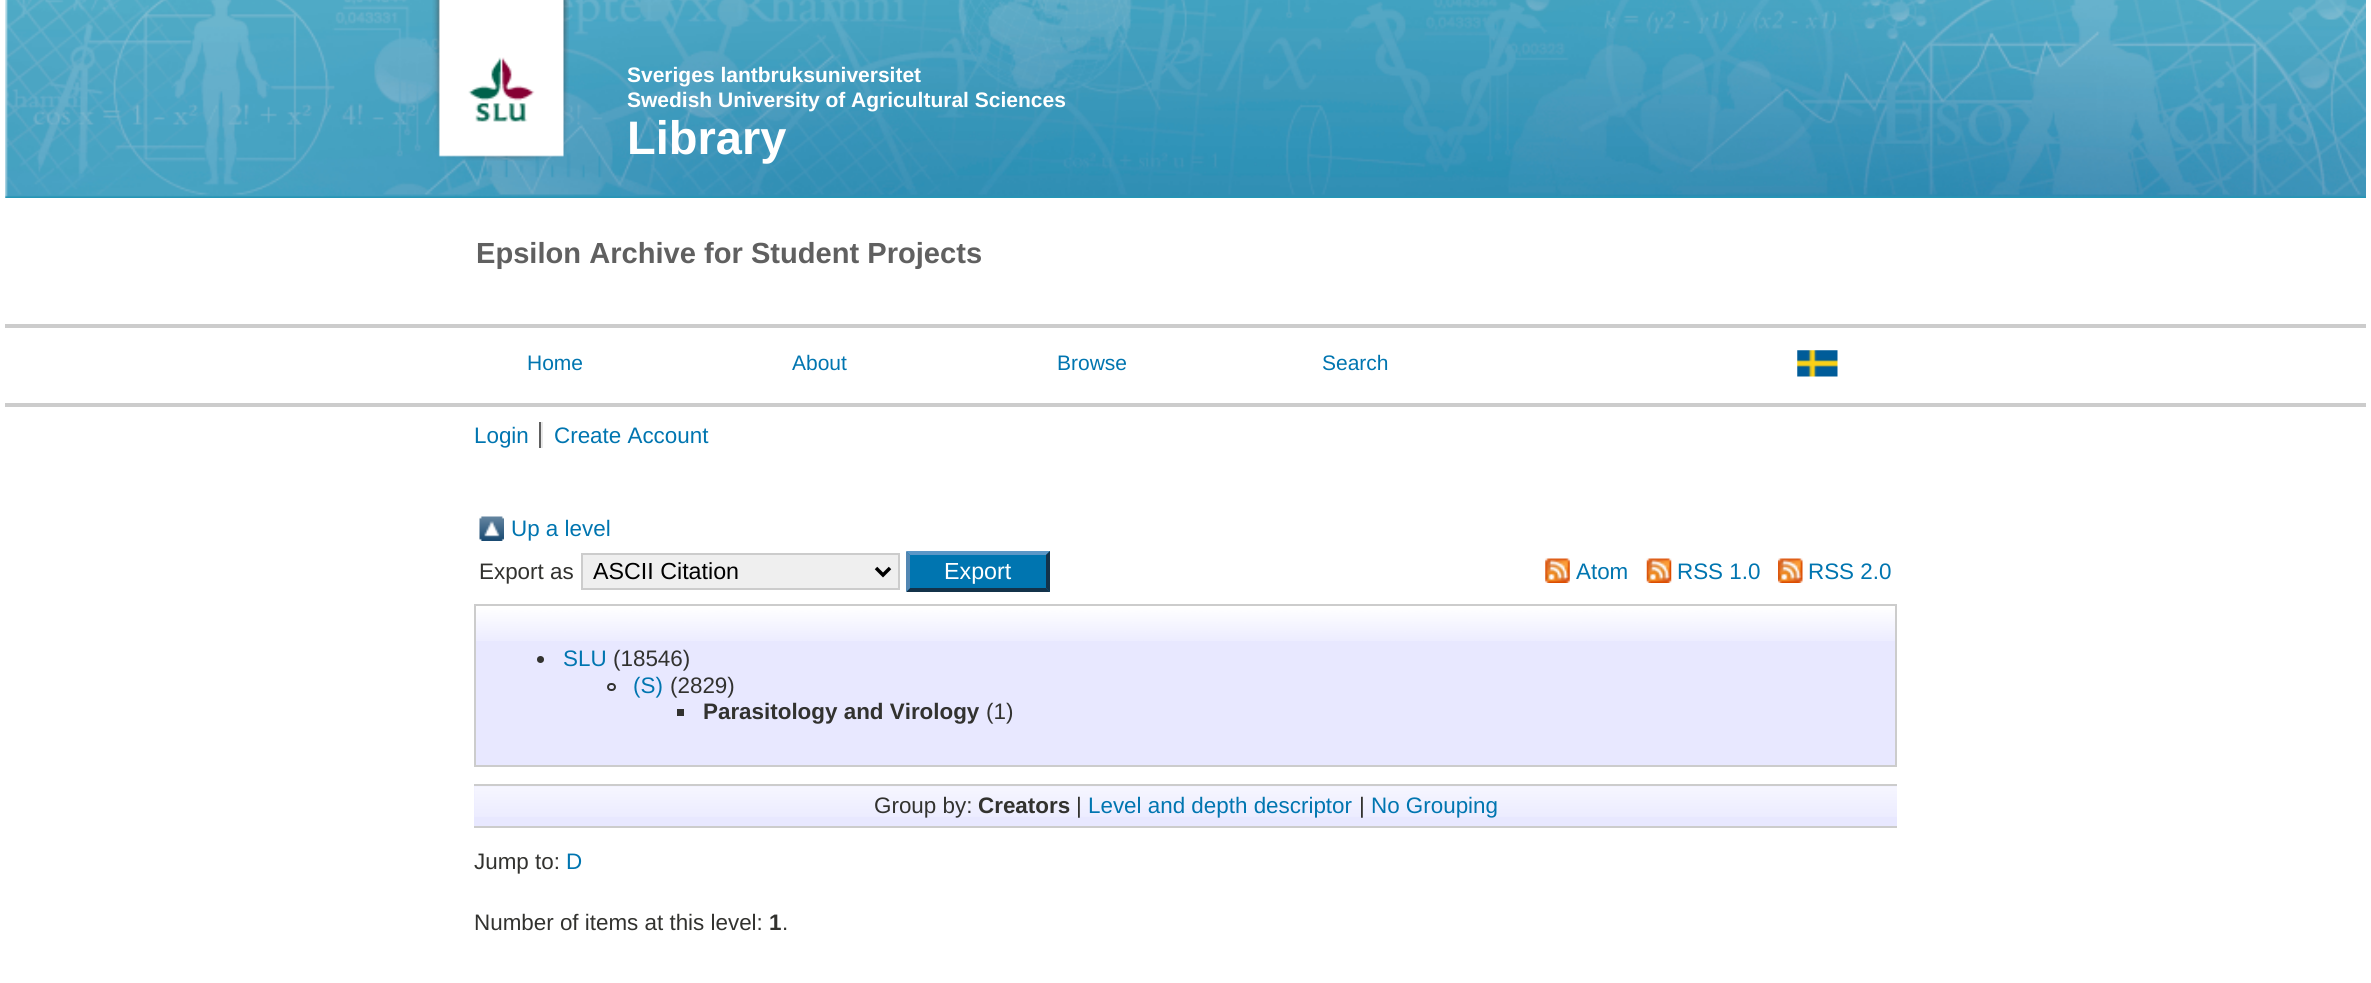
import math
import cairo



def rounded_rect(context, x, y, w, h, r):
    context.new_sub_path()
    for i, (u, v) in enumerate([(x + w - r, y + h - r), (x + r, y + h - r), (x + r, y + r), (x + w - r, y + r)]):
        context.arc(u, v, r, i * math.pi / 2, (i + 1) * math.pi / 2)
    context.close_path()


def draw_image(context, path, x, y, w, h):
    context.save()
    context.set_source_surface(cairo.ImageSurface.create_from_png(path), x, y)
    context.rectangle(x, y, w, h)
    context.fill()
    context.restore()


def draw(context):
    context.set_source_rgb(1, 1, 1)
    context.paint()
    draw_image(context, "images/1.png", 5, 0, 2361, 198)
    draw_image(context, "images/2.png", 432, 0, 137, 161)
    context.set_source_rgb(204 / 255, 204 / 255, 204 / 255)
    context.rectangle(5, 324, 2361, 4)
    context.fill()
    draw_image(context, "images/3.png", 1797, 350, 41, 27)
    context.rectangle(5, 403, 2361, 4)
    context.fill()
    context.set_source_rgb(96 / 255, 96 / 255, 96 / 255)
    context.rectangle(539, 422, 2, 26)
    context.fill()
    context.set_source_rgb(232 / 255, 232 / 255, 232 / 255)
    context.rectangle(541, 422, 2, 26)
    context.fill()
    draw_image(context, "images/4.png", 479, 516, 25, 25)
    context.set_source_rgb(239 / 255, 239 / 255, 239 / 255)
    context.rectangle(582, 554, 317, 35)
    context.fill_preserve()
    context.set_source_rgb(204 / 255, 204 / 255, 204 / 255)
    context.stroke()
    context.new_path()
    context.move_to(876, 568)
    context.line_to(883, 575)
    context.line_to(890, 568)
    context.set_source_rgb(0, 0, 0)
    context.set_line_width(3.5)
    context.stroke()
    context.set_source_rgb(0, 117 / 255, 176 / 255)
    context.rectangle(907, 551, 143, 41)
    context.fill()
    context.set_source_rgb(91 / 255, 151 / 255, 199 / 255)
    context.new_path()
    context.move_to(906, 551)
    context.line_to(1050, 551)
    context.line_to(1046, 555)
    context.line_to(910, 555)
    context.close_path()
    context.fill()
    context.set_source_rgb(19 / 255, 50 / 255, 74 / 255)
    context.new_path()
    context.move_to(1050, 551)
    context.line_to(1050, 592)
    context.line_to(1046, 588)
    context.line_to(1046, 555)
    context.close_path()
    context.fill()
    context.new_path()
    context.move_to(1050, 592)
    context.line_to(906, 592)
    context.line_to(910, 588)
    context.line_to(1046, 588)
    context.close_path()
    context.fill()
    context.set_source_rgb(82 / 255, 135 / 255, 179 / 255)
    context.new_path()
    context.move_to(906, 592)
    context.line_to(906, 551)
    context.line_to(910, 555)
    context.line_to(910, 588)
    context.close_path()
    context.fill()
    draw_image(context, "images/5.png", 1545, 558, 25, 25)
    draw_image(context, "images/6.png", 1646, 558, 26, 25)
    draw_image(context, "images/7.png", 1778, 558, 25, 25)
    context.set_source_rgb(232 / 255, 232 / 255, 1)
    context.rectangle(476, 607, 1419, 158)
    context.fill()
    draw_image(context, "images/8.png", 476, 606, 1419, 35)
    context.rectangle(475, 605, 1421, 161)
    context.set_source_rgb(204 / 255, 204 / 255, 204 / 255)
    context.set_line_width(2)
    context.stroke()
    context.set_source_rgb(50 / 255, 50 / 255, 47 / 255)
    context.arc(540.5, 659.5, 3.5, 0, 2 * math.pi)
    context.fill()
    rounded_rect(context, 608, 684, 7, 6, 3)
    context.stroke()
    context.rectangle(677, 709, 7, 7)
    context.fill()
    context.set_source_rgb(232 / 255, 232 / 255, 1)
    context.rectangle(474, 786, 1423, 40)
    context.fill()
    draw_image(context, "images/9.png", 474, 786, 1423, 31)
    context.set_source_rgb(204 / 255, 204 / 255, 204 / 255)
    context.rectangle(474, 784, 1423, 2)
    context.fill()
    context.rectangle(474, 826, 1423, 2)
    context.fill()
    context.select_font_face("Liberation Sans", cairo.FontSlant.NORMAL, cairo.FontWeight.BOLD)
    context.set_font_size(21)
    context.set_source_rgb(1, 1, 1)
    context.move_to(627, 82)
    context.show_text("Sveriges lantbruksuniversitet")
    context.move_to(627, 107)
    context.show_text("Swedish University of Agricultural Sciences")
    context.set_font_size(47)
    context.move_to(627, 154)
    context.show_text("Library")
    context.set_font_size(29.1)
    context.set_source_rgb(96 / 255, 96 / 255, 96 / 255)
    context.move_to(476, 263)
    context.show_text("Epsilon Archive for Student Projects")
    context.select_font_face("Liberation Sans")
    context.set_font_size(21)
    context.set_source_rgb(0, 117 / 255, 176 / 255)
    context.move_to(527, 370)
    context.show_text("Home")
    context.move_to(792, 370)
    context.show_text("About")
    context.move_to(1057, 370)
    context.show_text("Browse")
    context.move_to(1322, 370)
    context.show_text("Search")
    context.set_font_size(22.4)
    context.move_to(474, 443)
    context.show_text("Login")
    context.move_to(554, 443)
    context.show_text("Create Account")
    context.move_to(511, 536)
    context.show_text("Up a level")
    context.set_source_rgb(50 / 255, 50 / 255, 47 / 255)
    context.move_to(479, 579)
    context.show_text("Export as")
    context.set_font_size(23.25)
    context.set_source_rgb(0, 0, 0)
    context.move_to(593, 579)
    context.show_text("ASCII Citation")
    context.set_source_rgb(1, 1, 1)
    context.move_to(944, 579)
    context.show_text("Export")
    context.set_font_size(22.4)
    context.set_source_rgb(0, 117 / 255, 176 / 255)
    context.move_to(1576, 579)
    context.show_text("Atom")
    context.move_to(1677, 579)
    context.show_text("RSS 1.0")
    context.move_to(1808, 579)
    context.show_text("RSS 2.0")
    context.move_to(563, 666)
    context.show_text("SLU")
    context.set_source_rgb(50 / 255, 50 / 255, 47 / 255)
    context.move_to(613, 666)
    context.show_text("(18546)")
    context.set_source_rgb(0, 117 / 255, 176 / 255)
    context.move_to(633, 693)
    context.show_text("(S)")
    context.set_source_rgb(50 / 255, 50 / 255, 47 / 255)
    context.move_to(670, 693)
    context.show_text("(2829)")
    context.select_font_face("Liberation Sans", cairo.FontSlant.NORMAL, cairo.FontWeight.BOLD)
    context.move_to(703, 719)
    context.show_text("Parasitology and Virology")
    context.select_font_face("Liberation Sans")
    context.move_to(986, 719)
    context.show_text("(1)")
    context.move_to(874, 813)
    context.show_text("Group by:")
    context.select_font_face("Liberation Sans", cairo.FontSlant.NORMAL, cairo.FontWeight.BOLD)
    context.move_to(978, 813)
    context.show_text("Creators")
    context.select_font_face("Liberation Sans")
    context.move_to(1076, 813)
    context.show_text("|")
    context.set_source_rgb(0, 117 / 255, 176 / 255)
    context.move_to(1088, 813)
    context.show_text("Level and depth descriptor")
    context.set_source_rgb(50 / 255, 50 / 255, 47 / 255)
    context.move_to(1359, 813)
    context.show_text("|")
    context.set_source_rgb(0, 117 / 255, 176 / 255)
    context.move_to(1371, 813)
    context.show_text("No Grouping")
    context.set_source_rgb(50 / 255, 50 / 255, 47 / 255)
    context.move_to(474, 869)
    context.show_text("Jump to:")
    context.set_source_rgb(0, 117 / 255, 176 / 255)
    context.move_to(566, 869)
    context.show_text("D")
    context.set_source_rgb(50 / 255, 50 / 255, 47 / 255)
    context.move_to(474, 930)
    context.show_text("Number of items at this level:")
    context.select_font_face("Liberation Sans", cairo.FontSlant.NORMAL, cairo.FontWeight.BOLD)
    context.move_to(769, 930)
    context.show_text("1")
    context.select_font_face("Liberation Sans")
    context.move_to(782, 930)
    context.show_text(".")


surface = cairo.ImageSurface(cairo.Format.RGB24, 2371, 983)
context = cairo.Context(surface)
options = cairo.FontOptions()
options.set_hint_metrics(cairo.HintMetrics.OFF)
options.set_hint_style(cairo.HintStyle.NONE)
context.set_font_options(options)
context.set_miter_limit(4)
draw(context)
surface.write_to_png("out.png")
